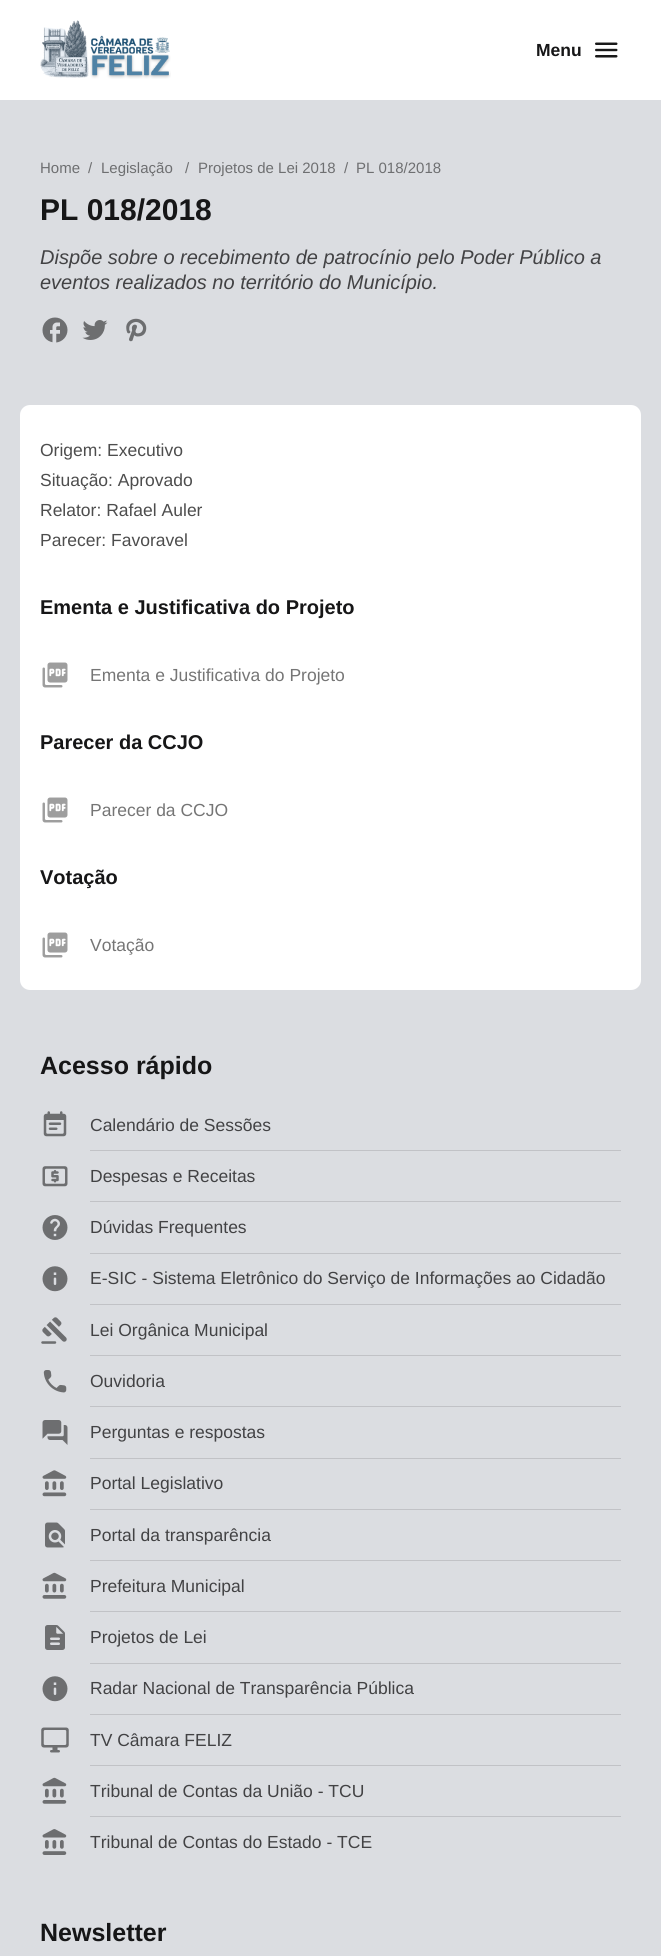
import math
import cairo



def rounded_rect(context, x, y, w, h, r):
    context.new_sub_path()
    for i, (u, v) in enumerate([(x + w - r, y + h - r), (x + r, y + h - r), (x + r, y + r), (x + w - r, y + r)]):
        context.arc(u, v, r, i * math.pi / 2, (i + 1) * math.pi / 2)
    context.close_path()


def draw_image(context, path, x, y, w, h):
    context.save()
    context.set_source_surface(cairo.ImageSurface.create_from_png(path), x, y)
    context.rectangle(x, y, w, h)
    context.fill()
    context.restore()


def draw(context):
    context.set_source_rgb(219 / 255, 221 / 255, 225 / 255)
    context.paint()
    context.set_source_rgb(1, 1, 1)
    context.rectangle(0, 0, 661, 100)
    context.fill()
    draw_image(context, "images/1.png", 40, 20, 131, 59)
    draw_image(context, "images/2.png", 595, 42, 23, 16)
    draw_image(context, "images/3.png", 42, 317, 26, 26)
    draw_image(context, "images/4.png", 82, 320, 26, 20)
    draw_image(context, "images/5.png", 126, 318, 21, 24)
    rounded_rect(context, 20, 405, 621, 585, 10)
    context.fill()
    draw_image(context, "images/6.png", 42, 662, 26, 26)
    draw_image(context, "images/6.png", 42, 797, 26, 26)
    draw_image(context, "images/6.png", 42, 932, 26, 26)
    draw_image(context, "images/7.png", 43, 1111, 24, 26)
    context.set_source_rgb(193 / 255, 194 / 255, 198 / 255)
    context.rectangle(90, 1150, 531, 1)
    context.fill()
    draw_image(context, "images/8.png", 42, 1166, 26, 21)
    context.rectangle(90, 1201, 531, 1)
    context.fill()
    draw_image(context, "images/9.png", 42, 1215, 26, 25)
    context.rectangle(90, 1253, 531, 1)
    context.fill()
    draw_image(context, "images/10.png", 42, 1266, 26, 26)
    context.rectangle(90, 1304, 531, 1)
    context.fill()
    draw_image(context, "images/11.png", 41, 1317, 26, 27)
    context.rectangle(90, 1355, 531, 1)
    context.fill()
    draw_image(context, "images/12.png", 43, 1370, 24, 23)
    context.rectangle(90, 1406, 531, 1)
    context.fill()
    draw_image(context, "images/13.png", 42, 1420, 26, 25)
    context.rectangle(90, 1458, 531, 1)
    context.fill()
    draw_image(context, "images/14.png", 42, 1470, 25, 27)
    context.rectangle(90, 1509, 531, 1)
    context.fill()
    draw_image(context, "images/15.png", 45, 1522, 20, 26)
    context.rectangle(90, 1560, 531, 1)
    context.fill()
    draw_image(context, "images/16.png", 42, 1572, 25, 27)
    context.rectangle(90, 1611, 531, 1)
    context.fill()
    draw_image(context, "images/17.png", 45, 1625, 20, 25)
    context.rectangle(90, 1663, 531, 1)
    context.fill()
    draw_image(context, "images/10.png", 42, 1676, 26, 26)
    context.rectangle(90, 1714, 531, 1)
    context.fill()
    draw_image(context, "images/18.png", 41, 1727, 28, 26)
    context.rectangle(90, 1765, 531, 1)
    context.fill()
    draw_image(context, "images/16.png", 42, 1777, 25, 27)
    context.rectangle(90, 1816, 531, 1)
    context.fill()
    draw_image(context, "images/19.png", 42, 1829, 25, 26)
    context.select_font_face("Liberation Sans", cairo.FontSlant.NORMAL, cairo.FontWeight.BOLD)
    context.set_font_size(17.5)
    context.set_source_rgb(22 / 255, 22 / 255, 23 / 255)
    context.move_to(536, 56)
    context.show_text("Menu")
    context.select_font_face("Liberation Sans")
    context.set_font_size(15)
    context.set_source_rgb(110 / 255, 111 / 255, 113 / 255)
    context.move_to(40, 173)
    context.show_text("Home")
    context.move_to(88, 173)
    context.show_text("/")
    context.move_to(101, 173)
    context.show_text("Legislação")
    context.move_to(185, 173)
    context.show_text("/")
    context.move_to(198, 173)
    context.show_text("Projetos de Lei 2018")
    context.move_to(344, 173)
    context.show_text("/")
    context.move_to(356, 173)
    context.show_text("PL 018/2018")
    context.select_font_face("Liberation Sans", cairo.FontSlant.NORMAL, cairo.FontWeight.BOLD)
    context.set_font_size(30)
    context.set_source_rgb(22 / 255, 22 / 255, 23 / 255)
    context.move_to(40, 220)
    context.show_text("PL 018/2018")
    context.select_font_face("Liberation Sans", cairo.FontSlant.ITALIC)
    context.set_font_size(20)
    context.set_source_rgb(66 / 255, 66 / 255, 68 / 255)
    context.move_to(40, 264)
    context.show_text("Dispõe sobre o recebimento de patrocínio pelo Poder Público a")
    context.move_to(40, 289)
    context.show_text("eventos realizados no território do Município.")
    context.select_font_face("Liberation Sans")
    context.set_font_size(17.5)
    context.set_source_rgb(77 / 255, 77 / 255, 77 / 255)
    context.move_to(40, 456)
    context.show_text("Origem: Executivo")
    context.move_to(40, 486)
    context.show_text("Situação: Aprovado")
    context.move_to(40, 516)
    context.show_text("Relator: Rafael Auler")
    context.move_to(40, 546)
    context.show_text("Parecer: Favoravel")
    context.select_font_face("Liberation Sans", cairo.FontSlant.NORMAL, cairo.FontWeight.BOLD)
    context.set_font_size(20)
    context.set_source_rgb(22 / 255, 22 / 255, 23 / 255)
    context.move_to(40, 614)
    context.show_text("Ementa e Justificativa do Projeto")
    context.select_font_face("Liberation Sans")
    context.set_font_size(17.5)
    context.set_source_rgb(117 / 255, 117 / 255, 117 / 255)
    context.move_to(90, 681)
    context.show_text("Ementa e Justificativa do Projeto")
    context.select_font_face("Liberation Sans", cairo.FontSlant.NORMAL, cairo.FontWeight.BOLD)
    context.set_font_size(20)
    context.set_source_rgb(22 / 255, 22 / 255, 23 / 255)
    context.move_to(40, 749)
    context.show_text("Parecer da CCJO")
    context.select_font_face("Liberation Sans")
    context.set_font_size(17.5)
    context.set_source_rgb(117 / 255, 117 / 255, 117 / 255)
    context.move_to(90, 816)
    context.show_text("Parecer da CCJO")
    context.select_font_face("Liberation Sans", cairo.FontSlant.NORMAL, cairo.FontWeight.BOLD)
    context.set_font_size(20)
    context.set_source_rgb(22 / 255, 22 / 255, 23 / 255)
    context.move_to(40, 884)
    context.show_text("Votação")
    context.select_font_face("Liberation Sans")
    context.set_font_size(17.5)
    context.set_source_rgb(117 / 255, 117 / 255, 117 / 255)
    context.move_to(90, 951)
    context.show_text("Votação")
    context.select_font_face("Liberation Sans", cairo.FontSlant.NORMAL, cairo.FontWeight.BOLD)
    context.set_font_size(25)
    context.set_source_rgb(22 / 255, 22 / 255, 23 / 255)
    context.move_to(40, 1074)
    context.show_text("Acesso rápido")
    context.select_font_face("Liberation Sans")
    context.set_font_size(17.5)
    context.set_source_rgb(66 / 255, 66 / 255, 68 / 255)
    context.move_to(90, 1131)
    context.show_text("Calendário de Sessões")
    context.move_to(90, 1182)
    context.show_text("Despesas e Receitas")
    context.move_to(90, 1233)
    context.show_text("Dúvidas Frequentes")
    context.move_to(90, 1284)
    context.show_text("E-SIC - Sistema Eletrônico do Serviço de Informações ao Cidadão")
    context.move_to(90, 1336)
    context.show_text("Lei Orgânica Municipal")
    context.move_to(90, 1387)
    context.show_text("Ouvidoria")
    context.move_to(90, 1438)
    context.show_text("Perguntas e respostas")
    context.move_to(90, 1489)
    context.show_text("Portal Legislativo")
    context.move_to(90, 1541)
    context.show_text("Portal da transparência")
    context.move_to(90, 1592)
    context.show_text("Prefeitura Municipal")
    context.move_to(90, 1643)
    context.show_text("Projetos de Lei")
    context.move_to(90, 1694)
    context.show_text("Radar Nacional de Transparência Pública")
    context.move_to(90, 1746)
    context.show_text("TV Câmara FELIZ")
    context.move_to(90, 1797)
    context.show_text("Tribunal de Contas da União - TCU")
    context.move_to(90, 1848)
    context.show_text("Tribunal de Contas do Estado - TCE")
    context.select_font_face("Liberation Sans", cairo.FontSlant.NORMAL, cairo.FontWeight.BOLD)
    context.set_font_size(25)
    context.set_source_rgb(22 / 255, 22 / 255, 23 / 255)
    context.move_to(40, 1941)
    context.show_text("Newsletter")


surface = cairo.ImageSurface(cairo.Format.RGB24, 661, 1956)
context = cairo.Context(surface)
options = cairo.FontOptions()
options.set_hint_metrics(cairo.HintMetrics.OFF)
options.set_hint_style(cairo.HintStyle.NONE)
context.set_font_options(options)
context.set_miter_limit(4)
draw(context)
surface.write_to_png("out.png")
